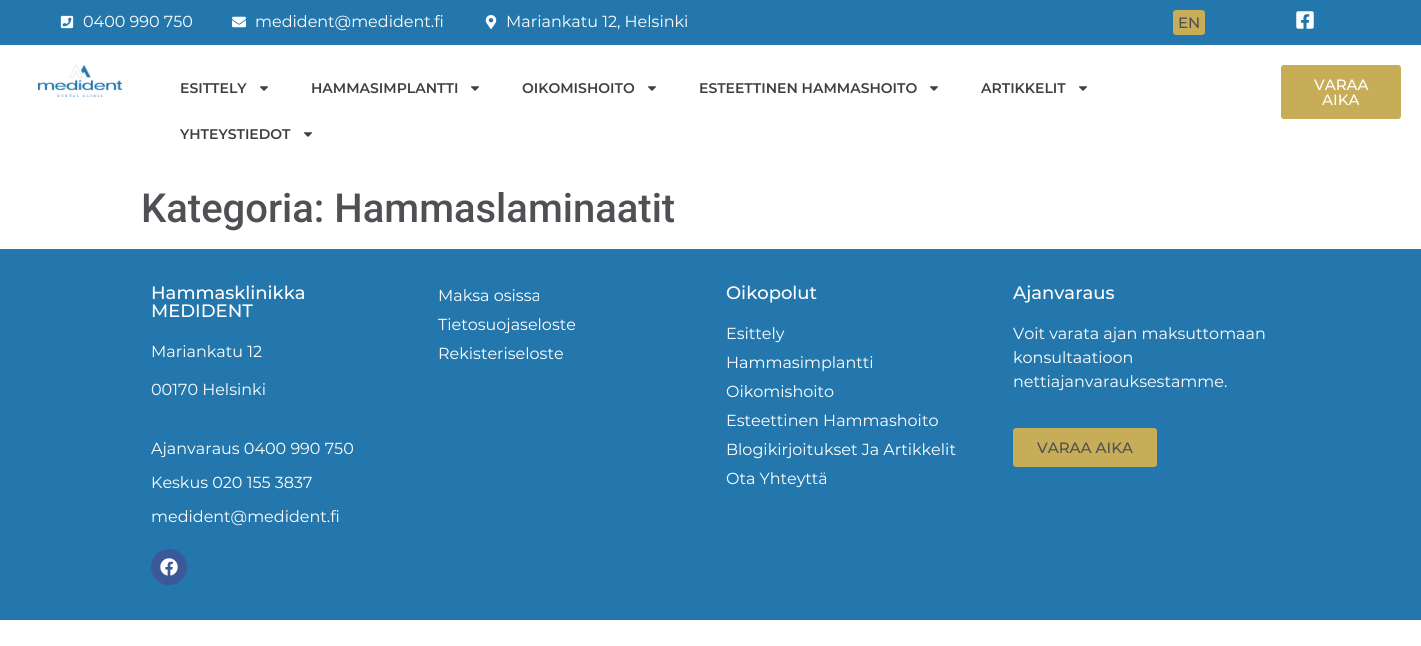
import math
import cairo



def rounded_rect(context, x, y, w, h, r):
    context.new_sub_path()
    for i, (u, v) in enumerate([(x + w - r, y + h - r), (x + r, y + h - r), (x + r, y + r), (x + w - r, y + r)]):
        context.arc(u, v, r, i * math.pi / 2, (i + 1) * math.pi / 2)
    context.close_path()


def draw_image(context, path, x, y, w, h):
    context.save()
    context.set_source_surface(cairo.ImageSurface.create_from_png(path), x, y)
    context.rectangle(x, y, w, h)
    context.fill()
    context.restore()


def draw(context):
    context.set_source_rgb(1, 1, 1)
    context.paint()
    context.set_source_rgb(36 / 255, 119 / 255, 172 / 255)
    context.rectangle(0, 0, 1421, 45)
    context.fill()
    draw_image(context, "images/1.png", 60, 15, 14, 14)
    draw_image(context, "images/2.png", 232, 16, 14, 12)
    draw_image(context, "images/3.png", 485, 15, 12, 14)
    context.set_source_rgb(199 / 255, 173 / 255, 88 / 255)
    rounded_rect(context, 1173, 10, 32, 25, 3)
    context.fill()
    draw_image(context, "images/4.png", 1296, 11, 18, 18)
    draw_image(context, "images/5.png", 38, 65, 84, 32)
    draw_image(context, "images/6.png", 260, 86, 8, 5)
    draw_image(context, "images/6.png", 471, 86, 8, 5)
    draw_image(context, "images/6.png", 648, 86, 8, 5)
    draw_image(context, "images/6.png", 930, 86, 8, 5)
    draw_image(context, "images/6.png", 1079, 86, 8, 5)
    draw_image(context, "images/6.png", 304, 132, 8, 5)
    rounded_rect(context, 1281, 65, 120, 54, 3)
    context.fill()
    context.set_source_rgb(36 / 255, 119 / 255, 172 / 255)
    context.rectangle(0, 249, 1421, 371)
    context.fill()
    context.set_source_rgb(59 / 255, 89 / 255, 152 / 255)
    context.arc(169, 567, 18, 0, 2 * math.pi)
    context.fill()
    draw_image(context, "images/7.png", 160, 558, 18, 18)
    context.set_source_rgb(199 / 255, 173 / 255, 88 / 255)
    rounded_rect(context, 1013, 428, 144, 39, 3)
    context.fill()
    context.select_font_face("Montserrat")
    context.set_font_size(16)
    context.set_source_rgb(1, 1, 1)
    context.move_to(83, 27)
    context.show_text("0400 990 750")
    context.move_to(255, 27)
    context.show_text("medident@medident.fi")
    context.move_to(506, 27)
    context.show_text("Mariankatu 12, Helsinki")
    context.select_font_face("Montserrat Medium")
    context.set_font_size(15)
    context.set_source_rgb(78 / 255, 80 / 255, 83 / 255)
    context.move_to(1178, 28)
    context.show_text("EN")
    context.select_font_face("Montserrat SemiBold")
    context.set_font_size(14)
    context.set_source_rgb(63 / 255, 63 / 255, 63 / 255)
    context.move_to(180, 93)
    context.show_text("ESITTELY")
    context.move_to(311, 93)
    context.show_text("HAMMASIMPLANTTI")
    context.move_to(522, 93)
    context.show_text("OIKOMISHOITO")
    context.move_to(699, 93)
    context.show_text("ESTEETTINEN HAMMASHOITO")
    context.move_to(981, 93)
    context.show_text("ARTIKKELIT")
    context.move_to(180, 139)
    context.show_text("YHTEYSTIEDOT")
    context.select_font_face("Montserrat Medium")
    context.set_font_size(15)
    context.set_source_rgb(1, 1, 1)
    context.move_to(1314, 90)
    context.show_text("VARAA")
    context.move_to(1322, 105)
    context.show_text("AIKA")
    context.select_font_face("Roboto Medium")
    context.set_font_size(40)
    context.set_source_rgb(78 / 255, 80 / 255, 83 / 255)
    context.move_to(141, 222)
    context.show_text("Kategoria: Hammaslaminaatit")
    context.select_font_face("Montserrat Medium")
    context.set_font_size(18)
    context.set_source_rgb(1, 1, 1)
    context.move_to(151, 299)
    context.show_text("Hammasklinikka")
    context.move_to(151, 317)
    context.show_text("MEDIDENT")
    context.select_font_face("Montserrat")
    context.set_font_size(16)
    context.move_to(151, 357)
    context.show_text("Mariankatu 12")
    context.move_to(151, 395)
    context.show_text("00170 Helsinki")
    context.move_to(151, 454)
    context.show_text("Ajanvaraus 0400 990 750")
    context.move_to(151, 488)
    context.show_text("Keskus 020 155 3837")
    context.move_to(151, 522)
    context.show_text("medident@medident.fi")
    context.move_to(438, 301)
    context.show_text("Maksa osissa")
    context.move_to(438, 330)
    context.show_text("Tietosuojaseloste")
    context.move_to(438, 359)
    context.show_text("Rekisteriseloste")
    context.select_font_face("Montserrat Medium")
    context.set_font_size(18)
    context.move_to(726, 299)
    context.show_text("Oikopolut")
    context.select_font_face("Montserrat")
    context.set_font_size(16)
    context.move_to(726, 339)
    context.show_text("Esittely")
    context.move_to(726, 368)
    context.show_text("Hammasimplantti")
    context.move_to(726, 397)
    context.show_text("Oikomishoito")
    context.move_to(726, 426)
    context.show_text("Esteettinen Hammashoito")
    context.move_to(726, 455)
    context.show_text("Blogikirjoitukset Ja Artikkelit")
    context.move_to(726, 484)
    context.show_text("Ota Yhteyttä")
    context.select_font_face("Montserrat Medium")
    context.set_font_size(18)
    context.move_to(1013, 299)
    context.show_text("Ajanvaraus")
    context.select_font_face("Montserrat")
    context.set_font_size(16)
    context.move_to(1013, 339)
    context.show_text("Voit varata ajan maksuttomaan")
    context.move_to(1013, 363)
    context.show_text("konsultaatioon")
    context.move_to(1013, 387)
    context.show_text("nettiajanvarauksestamme.")
    context.select_font_face("Montserrat Medium")
    context.set_font_size(15)
    context.set_source_rgb(78 / 255, 80 / 255, 83 / 255)
    context.move_to(1037, 453)
    context.show_text("VARAA AIKA")


surface = cairo.ImageSurface(cairo.Format.RGB24, 1421, 646)
context = cairo.Context(surface)
options = cairo.FontOptions()
options.set_hint_metrics(cairo.HintMetrics.OFF)
options.set_hint_style(cairo.HintStyle.NONE)
context.set_font_options(options)
context.set_miter_limit(4)
draw(context)
surface.write_to_png("out.png")
